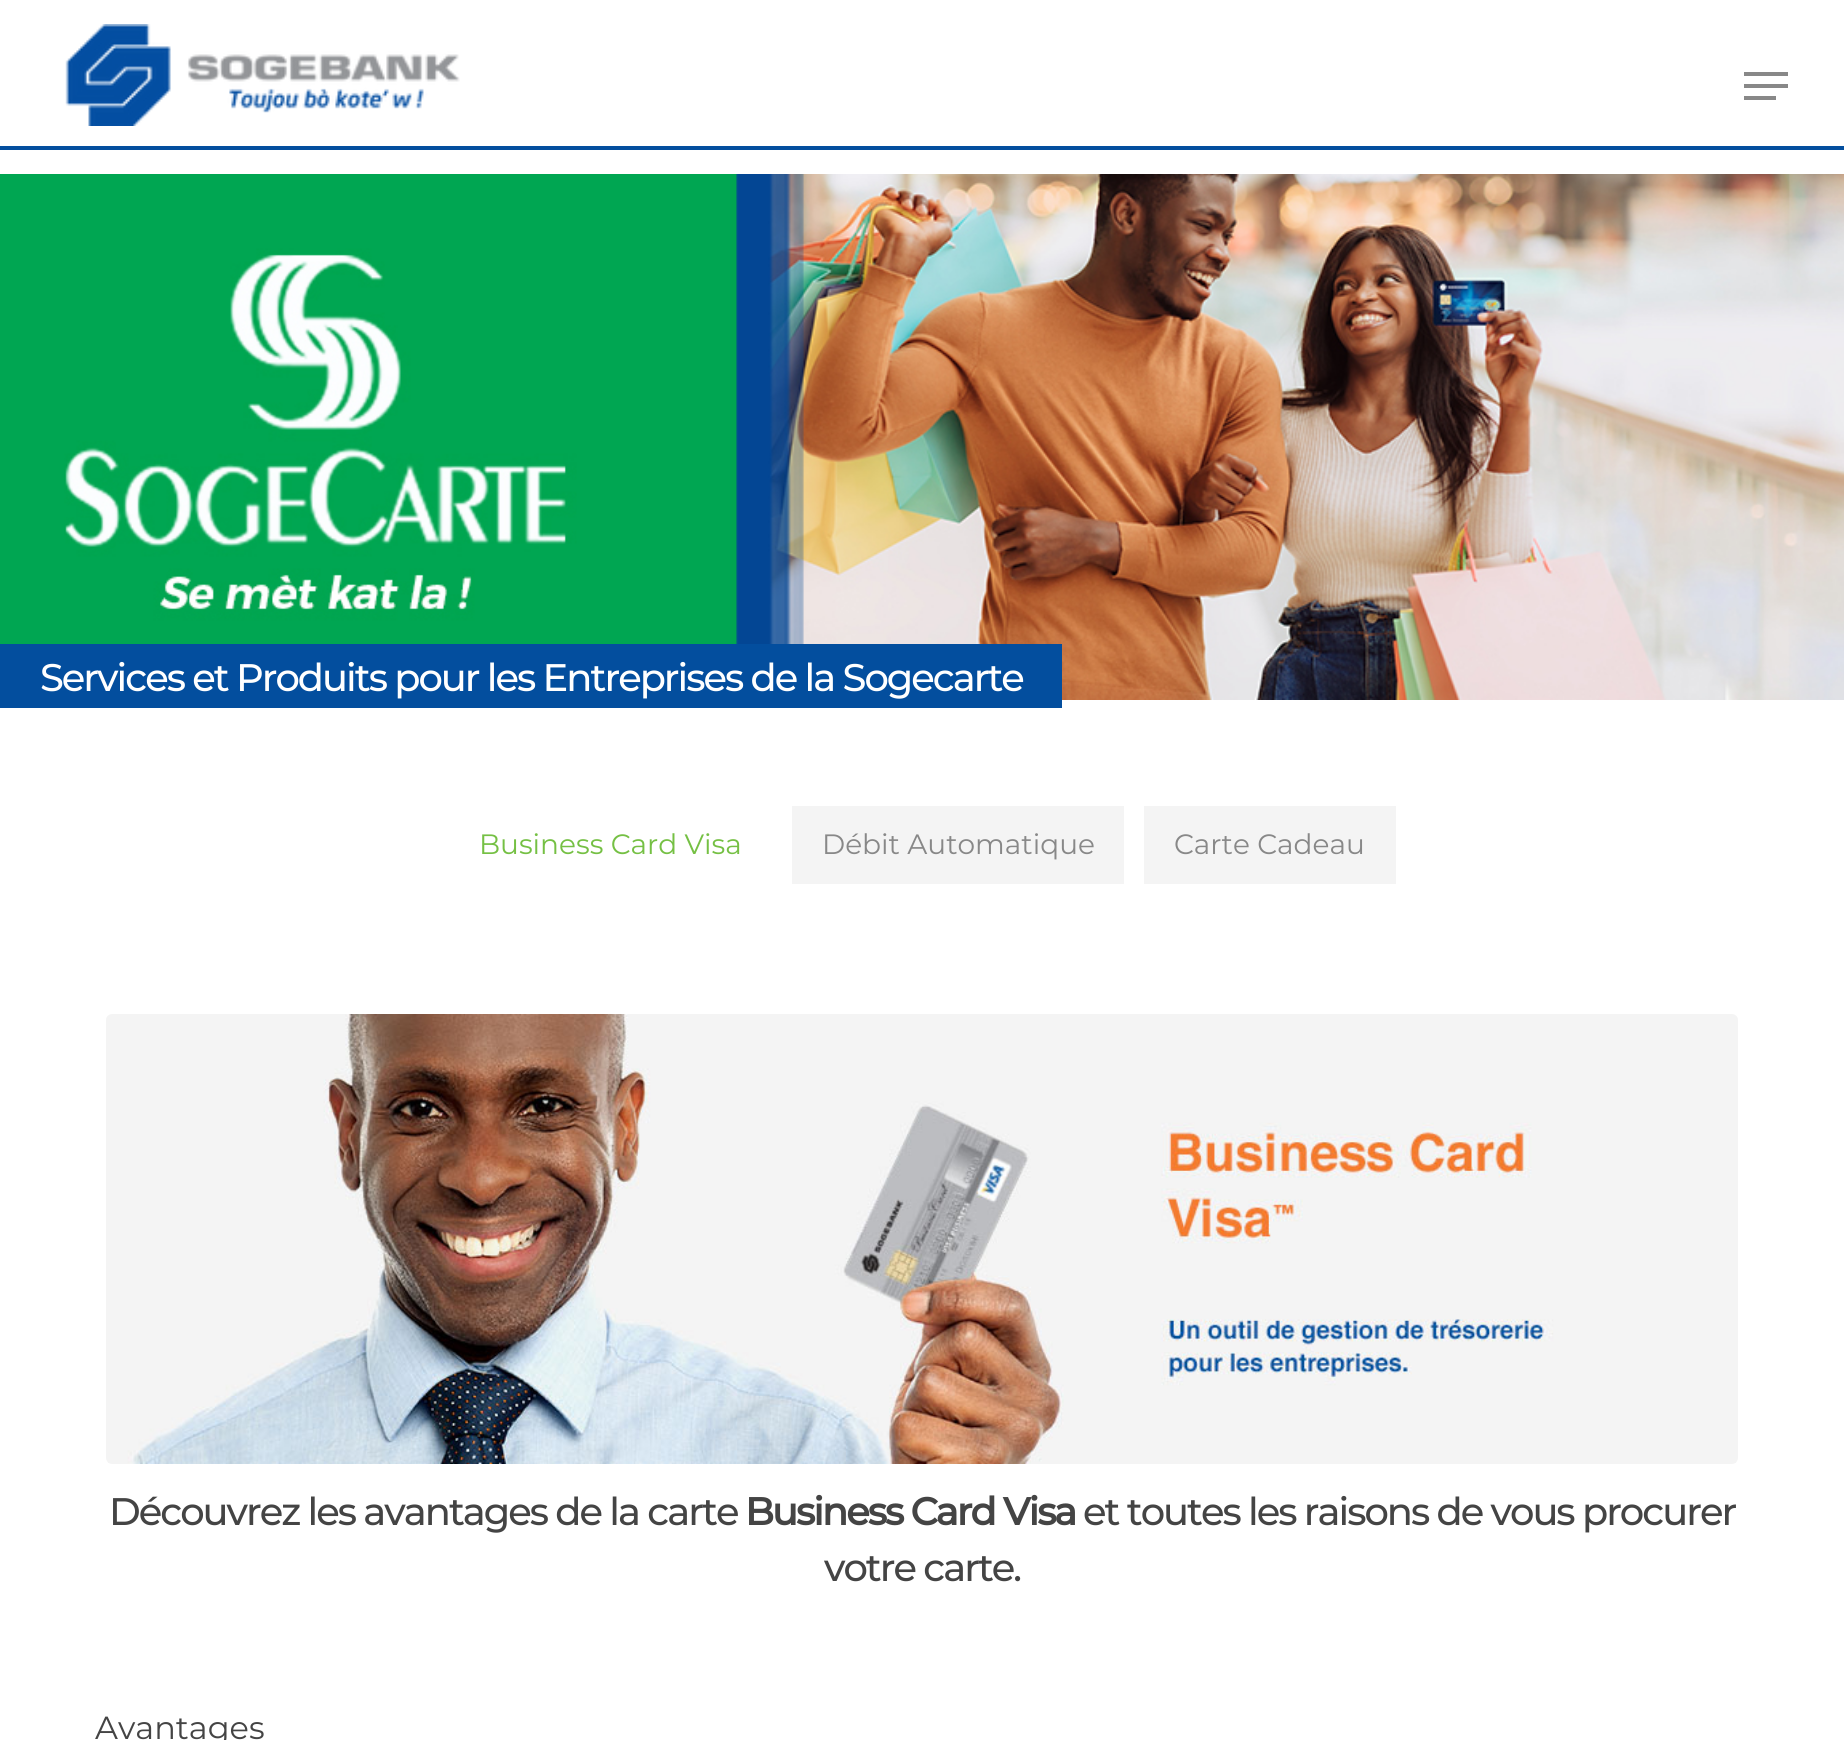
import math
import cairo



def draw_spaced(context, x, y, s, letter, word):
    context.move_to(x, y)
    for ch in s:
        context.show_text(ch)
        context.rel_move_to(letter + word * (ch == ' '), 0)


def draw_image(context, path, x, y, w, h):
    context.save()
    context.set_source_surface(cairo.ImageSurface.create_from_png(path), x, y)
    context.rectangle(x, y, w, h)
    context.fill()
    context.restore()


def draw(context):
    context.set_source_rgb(1, 1, 1)
    context.paint()
    context.set_source_rgb(3 / 255, 78 / 255, 158 / 255)
    context.rectangle(0, 146, 1844, 4)
    context.fill()
    draw_image(context, "images/1.png", 65, 24, 395, 102)
    context.set_source_rgb(136 / 255, 136 / 255, 136 / 255)
    context.rectangle(1744, 72, 44, 4)
    context.fill()
    context.rectangle(1744, 96, 32, 4)
    context.fill()
    context.rectangle(1744, 84, 44, 4)
    context.fill()
    draw_image(context, "images/2.png", 0, 174, 1844, 526)
    context.set_source_rgb(3 / 255, 78 / 255, 158 / 255)
    context.rectangle(0, 644, 1062, 64)
    context.fill()
    context.set_source_rgb(244 / 255, 244 / 255, 244 / 255)
    context.rectangle(792, 806, 332, 78)
    context.fill()
    context.rectangle(1144, 806, 252, 78)
    context.fill()
    draw_image(context, "images/3.png", 106, 1014, 1632, 450)
    context.select_font_face("Montserrat Medium")
    context.set_font_size(38.4)
    context.set_source_rgb(1, 1, 1)
    draw_spaced(context, 40, 691, "Services et Produits pour les Entreprises de la Sogecarte", -2, 0)
    context.select_font_face("Montserrat")
    context.set_font_size(28)
    context.set_source_rgb(117 / 255, 192 / 255, 68 / 255)
    context.move_to(479, 854)
    context.show_text("Business Card Visa")
    context.set_source_rgb(136 / 255, 136 / 255, 136 / 255)
    context.move_to(822, 854)
    context.show_text("Débit Automatique")
    context.move_to(1174, 854)
    context.show_text("Carte Cadeau")
    context.select_font_face("Montserrat Medium")
    context.set_font_size(38.4)
    context.set_source_rgb(68 / 255, 68 / 255, 68 / 255)
    draw_spaced(context, 109, 1525, "Découvrez les avantages de la carte", -2, 0)
    context.select_font_face("Montserrat", cairo.FontSlant.NORMAL, cairo.FontWeight.BOLD)
    draw_spaced(context, 745, 1525, "Business Card Visa", -2, 0)
    context.select_font_face("Montserrat Medium")
    draw_spaced(context, 1083, 1525, "et toutes les raisons de vous procurer", -2, 0)
    draw_spaced(context, 824, 1581, "votre carte.", -2, 0)
    context.select_font_face("Montserrat")
    context.set_font_size(32)
    context.move_to(95, 1739)
    context.show_text("Avantages")


surface = cairo.ImageSurface(cairo.Format.RGB24, 1844, 1740)
context = cairo.Context(surface)
options = cairo.FontOptions()
options.set_hint_metrics(cairo.HintMetrics.OFF)
options.set_hint_style(cairo.HintStyle.NONE)
context.set_font_options(options)
context.set_miter_limit(4)
draw(context)
surface.write_to_png("out.png")
